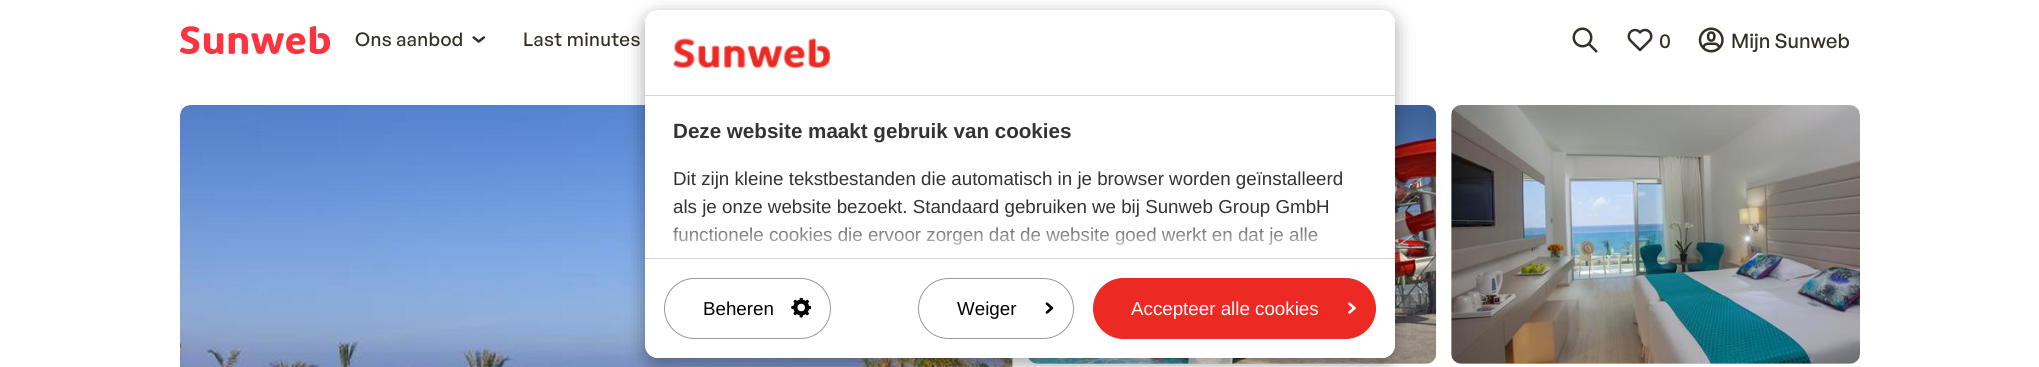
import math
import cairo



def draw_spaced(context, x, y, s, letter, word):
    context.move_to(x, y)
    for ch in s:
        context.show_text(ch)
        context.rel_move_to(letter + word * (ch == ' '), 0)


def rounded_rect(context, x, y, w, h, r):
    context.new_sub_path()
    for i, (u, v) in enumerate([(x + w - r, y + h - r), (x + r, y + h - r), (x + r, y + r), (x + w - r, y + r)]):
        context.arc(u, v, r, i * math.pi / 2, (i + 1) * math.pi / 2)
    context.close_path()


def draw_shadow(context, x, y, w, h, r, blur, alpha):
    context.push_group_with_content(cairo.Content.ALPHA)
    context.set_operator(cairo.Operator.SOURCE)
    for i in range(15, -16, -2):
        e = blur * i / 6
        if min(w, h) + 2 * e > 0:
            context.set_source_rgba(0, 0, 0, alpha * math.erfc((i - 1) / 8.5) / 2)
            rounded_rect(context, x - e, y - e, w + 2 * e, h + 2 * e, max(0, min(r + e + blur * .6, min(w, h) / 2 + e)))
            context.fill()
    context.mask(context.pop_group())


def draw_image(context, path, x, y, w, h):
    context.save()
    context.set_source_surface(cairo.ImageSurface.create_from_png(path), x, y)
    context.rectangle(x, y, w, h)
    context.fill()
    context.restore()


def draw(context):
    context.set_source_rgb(1, 1, 1)
    context.paint()
    draw_image(context, "images/1.png", 180, 26, 150, 29)
    draw_image(context, "images/2.png", 472, 36, 13, 7)
    draw_image(context, "images/3.png", 1572, 27, 26, 26)
    draw_image(context, "images/4.png", 1627, 28, 26, 24)
    draw_image(context, "images/5.png", 1698, 27, 26, 26)
    context.set_source_rgb(231 / 255, 224 / 255, 215 / 255)
    rounded_rect(context, 180, 105, 833, 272, 10)
    context.fill()
    draw_image(context, "images/6.png", 180, 105, 833, 262)
    rounded_rect(context, 1028, 105, 408, 259, 10)
    context.fill()
    draw_image(context, "images/7.png", 1028, 105, 409, 259)
    rounded_rect(context, 1451, 105, 409, 259, 10)
    context.fill()
    draw_image(context, "images/8.png", 1451, 105, 409, 259)
    context.set_source_rgb(0, 0, 0)
    draw_shadow(context, 645, 16, 750, 348, 13, 9.5, 0.19)
    draw_shadow(context, 645, 16, 750, 348, 13, 9.5, 0.2)
    context.set_source_rgb(1, 1, 1)
    rounded_rect(context, 645, 10, 750, 348, 13)
    context.fill()
    context.new_path()
    context.move_to(658, 10)
    context.line_to(1382, 10)
    context.curve_to(1389, 10, 1395, 16, 1395, 23)
    context.line_to(1395, 96)
    context.line_to(645, 96)
    context.line_to(645, 23)
    context.curve_to(645, 16, 651, 10, 658, 10)
    context.close_path()
    context.fill()
    context.set_source_rgb(214 / 255, 214 / 255, 214 / 255)
    context.rectangle(645, 95, 750, 1)
    context.fill()
    draw_image(context, "images/9.png", 673, 38, 157, 30)
    context.set_source_rgb(1, 1, 1)
    context.new_path()
    context.move_to(645, 258)
    context.line_to(1395, 258)
    context.line_to(1395, 345)
    context.curve_to(1395, 352, 1389, 358, 1382, 358)
    context.line_to(658, 358)
    context.curve_to(651, 358, 645, 352, 645, 345)
    context.close_path()
    context.fill()
    context.set_source_rgb(214 / 255, 214 / 255, 214 / 255)
    context.rectangle(645, 258, 750, 1)
    context.fill()
    rounded_rect(context, 664.5, 278.5, 166, 60, 30)
    context.set_source_rgb(153 / 255, 153 / 255, 153 / 255)
    context.set_line_width(1)
    context.stroke()
    draw_image(context, "images/10.png", 791, 298, 20, 20)
    rounded_rect(context, 918.5, 278.5, 155, 60, 30)
    context.stroke()
    draw_image(context, "images/11.png", 1045, 302, 9, 12)
    context.set_source_rgb(237 / 255, 41 / 255, 36 / 255)
    rounded_rect(context, 1093.5, 278.5, 282, 60, 30)
    context.fill_preserve()
    context.stroke()
    draw_image(context, "images/12.png", 1348, 302, 8, 12)
    context.select_font_face("General Sans Medium")
    context.set_font_size(18.75)
    context.set_source_rgb(53 / 255, 47 / 255, 40 / 255)
    draw_spaced(context, 355, 46, "Ons aanbod", 0.4, 0)
    draw_spaced(context, 523, 46, "Last minutes", 0.4, 0)
    context.set_font_size(20)
    context.move_to(1659, 48)
    context.show_text("0")
    context.move_to(1731, 48)
    context.show_text("Mijn Sunweb")
    context.select_font_face("Liberation Sans", cairo.FontSlant.NORMAL, cairo.FontWeight.BOLD)
    context.set_font_size(20.6)
    context.set_source_rgb(51 / 255, 51 / 255, 51 / 255)
    context.move_to(673, 138)
    context.show_text("Deze website maakt gebruik van cookies")
    context.select_font_face("Liberation Sans")
    context.set_font_size(18.75)
    context.move_to(673, 185)
    context.show_text("Dit zijn kleine tekstbestanden die automatisch in je browser worden geïnstalleerd")
    context.move_to(673, 213)
    context.show_text("als je onze website bezoekt. Standaard gebruiken we bij Sunweb Group GmbH")
    context.move_to(673, 241)
    context.show_text("functionele cookies die ervoor zorgen dat de website goed werkt en dat je alle")
    gradient = cairo.LinearGradient(1011, 258, 1011, 218)
    gradient.add_color_stop_rgba(0, 1, 1, 1, 1)
    gradient.add_color_stop_rgba(1, 1, 1, 1, 0)
    context.set_source(gradient)
    context.rectangle(673, 227, 645, 18)
    context.fill()
    context.set_source_rgb(0, 0, 0)
    context.move_to(703, 315)
    context.show_text("Beheren")
    context.move_to(957, 315)
    context.show_text("Weiger")
    context.set_source_rgb(1, 1, 1)
    context.move_to(1131, 315)
    context.show_text("Accepteer alle cookies")


surface = cairo.ImageSurface(cairo.Format.RGB24, 2039, 367)
context = cairo.Context(surface)
options = cairo.FontOptions()
options.set_hint_metrics(cairo.HintMetrics.OFF)
options.set_hint_style(cairo.HintStyle.NONE)
context.set_font_options(options)
context.set_miter_limit(4)
draw(context)
surface.write_to_png("out.png")
